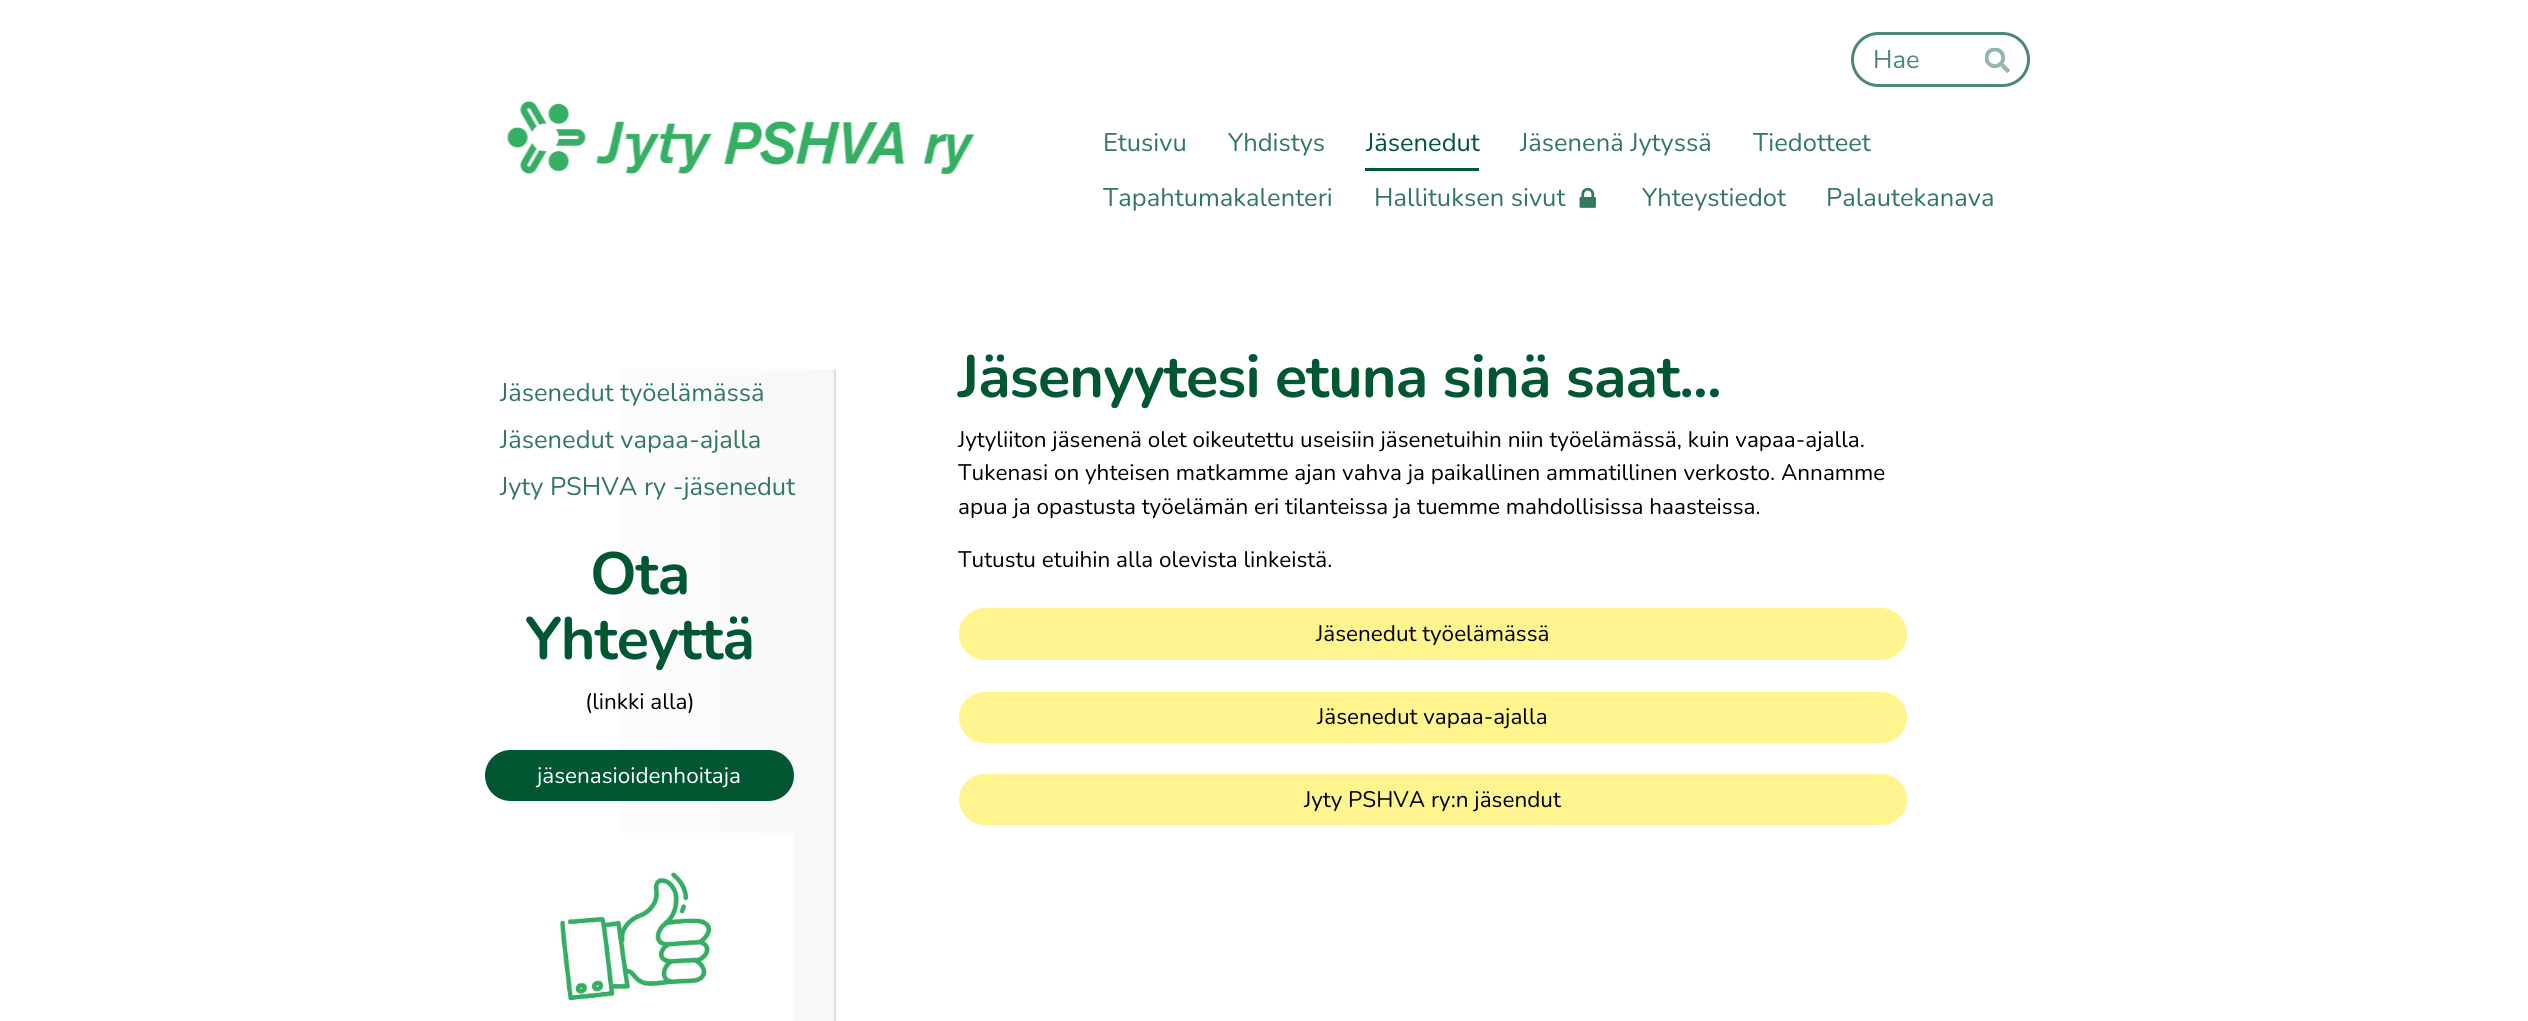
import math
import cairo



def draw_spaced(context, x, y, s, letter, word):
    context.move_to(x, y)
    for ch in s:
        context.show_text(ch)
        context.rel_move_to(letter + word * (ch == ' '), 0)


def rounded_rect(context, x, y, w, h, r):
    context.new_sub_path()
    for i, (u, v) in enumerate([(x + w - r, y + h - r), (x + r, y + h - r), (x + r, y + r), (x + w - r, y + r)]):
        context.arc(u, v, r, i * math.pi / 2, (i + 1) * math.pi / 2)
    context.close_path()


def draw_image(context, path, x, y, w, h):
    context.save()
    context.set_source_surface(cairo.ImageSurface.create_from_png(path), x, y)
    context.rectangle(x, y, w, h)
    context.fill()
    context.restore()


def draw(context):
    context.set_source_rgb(1, 1, 1)
    context.paint()
    rounded_rect(context, 1852.5, 33.5, 176, 52, 26)
    context.set_source_rgb(77 / 255, 137 / 255, 112 / 255)
    context.set_line_width(3)
    context.stroke()
    draw_image(context, "images/1.png", 1985, 48, 25, 25)
    draw_image(context, "images/2.png", 507, 101, 468, 74)
    context.set_source_rgb(0, 87 / 255, 50 / 255)
    context.rectangle(1365, 168, 114, 3)
    context.fill()
    draw_image(context, "images/3.png", 1579, 187, 17, 21)
    gradient = cairo.LinearGradient(500, 728, 836, 728)
    gradient.add_color_stop_rgba(0, 1, 1, 1, 1)
    gradient.add_color_stop_rgba(1, 248 / 255, 248 / 255, 248 / 255, 1)
    context.set_source(gradient)
    context.rectangle(620, 369, 214, 652)
    context.fill()
    context.set_source_rgb(223 / 255, 223 / 255, 223 / 255)
    context.rectangle(834, 369, 2, 652)
    context.fill()
    context.set_source_rgb(0, 87 / 255, 50 / 255)
    rounded_rect(context, 485, 750, 309, 51, 25.5)
    context.fill()
    draw_image(context, "images/4.png", 559, 833, 234, 188)
    context.set_source_rgb(1, 244 / 255, 142 / 255)
    rounded_rect(context, 959, 608, 948, 52, 26)
    context.fill()
    rounded_rect(context, 959, 692, 948, 51, 25.5)
    context.fill()
    rounded_rect(context, 959, 774, 948, 51, 25.5)
    context.fill()
    context.select_font_face("Nunito ExtraLight")
    context.set_font_size(25.5)
    context.set_source_rgb(77 / 255, 137 / 255, 112 / 255)
    context.move_to(1873, 68)
    context.show_text("Hae")
    context.set_source_rgb(51 / 255, 121 / 255, 91 / 255)
    context.move_to(1103, 151)
    context.show_text("Etusivu")
    context.move_to(1228, 151)
    context.show_text("Yhdistys")
    context.set_source_rgb(0, 87 / 255, 50 / 255)
    context.move_to(1366, 151)
    context.show_text("Jäsenedut")
    context.set_source_rgb(51 / 255, 121 / 255, 91 / 255)
    context.move_to(1520, 151)
    context.show_text("Jäsenenä Jytyssä")
    context.move_to(1753, 151)
    context.show_text("Tiedotteet")
    context.move_to(1103, 206)
    context.show_text("Tapahtumakalenteri")
    context.move_to(1374, 206)
    context.show_text("Hallituksen sivut")
    context.move_to(1642, 206)
    context.show_text("Yhteystiedot")
    context.move_to(1826, 206)
    context.show_text("Palautekanava")
    context.move_to(500, 401)
    context.show_text("Jäsenedut työelämässä")
    context.move_to(500, 448)
    context.show_text("Jäsenedut vapaa-ajalla")
    context.move_to(500, 495)
    context.show_text("Jyty PSHVA ry -jäsenedut")
    context.select_font_face("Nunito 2 ExtraLight")
    context.set_font_size(59.5)
    context.set_source_rgb(0, 87 / 255, 50 / 255)
    draw_spaced(context, 590, 594, "Ota", -0.9, 0)
    draw_spaced(context, 525, 659, "Yhteyttä", -0.9, 0)
    context.select_font_face("Nunito ExtraLight")
    context.set_font_size(22.5)
    context.set_source_rgb(0, 0, 0)
    context.move_to(585, 709)
    context.show_text("(linkki alla)")
    context.set_source_rgb(1, 1, 1)
    context.move_to(537, 783)
    context.show_text("jäsenasioidenhoitaja")
    context.select_font_face("Nunito 2 ExtraLight")
    context.set_font_size(59.5)
    context.set_source_rgb(0, 87 / 255, 50 / 255)
    draw_spaced(context, 958, 397, "Jäsenyytesi etuna sinä saat...", -0.9, 0)
    context.select_font_face("Nunito ExtraLight")
    context.set_font_size(22.5)
    context.set_source_rgb(0, 0, 0)
    context.move_to(958, 447)
    context.show_text("Jytyliiton jäsenenä olet oikeutettu useisiin jäsenetuihin niin työelämässä, kuin vapaa-ajalla.")
    context.move_to(958, 480)
    context.show_text("Tukenasi on yhteisen matkamme ajan vahva ja paikallinen ammatillinen verkosto. Annamme")
    context.move_to(958, 514)
    context.show_text("apua ja opastusta työelämän eri tilanteissa ja tuemme mahdollisissa haasteissa.")
    context.move_to(958, 567)
    context.show_text("Tutustu etuihin alla olevista linkeistä.")
    context.move_to(1316, 641)
    context.show_text("Jäsenedut työelämässä")
    context.move_to(1317, 724)
    context.show_text("Jäsenedut vapaa-ajalla")
    context.move_to(1304, 807)
    context.show_text("Jyty PSHVA ry:n jäsendut")


surface = cairo.ImageSurface(cairo.Format.RGB24, 2528, 1021)
context = cairo.Context(surface)
options = cairo.FontOptions()
options.set_hint_metrics(cairo.HintMetrics.OFF)
options.set_hint_style(cairo.HintStyle.NONE)
context.set_font_options(options)
context.set_miter_limit(4)
draw(context)
surface.write_to_png("out.png")
